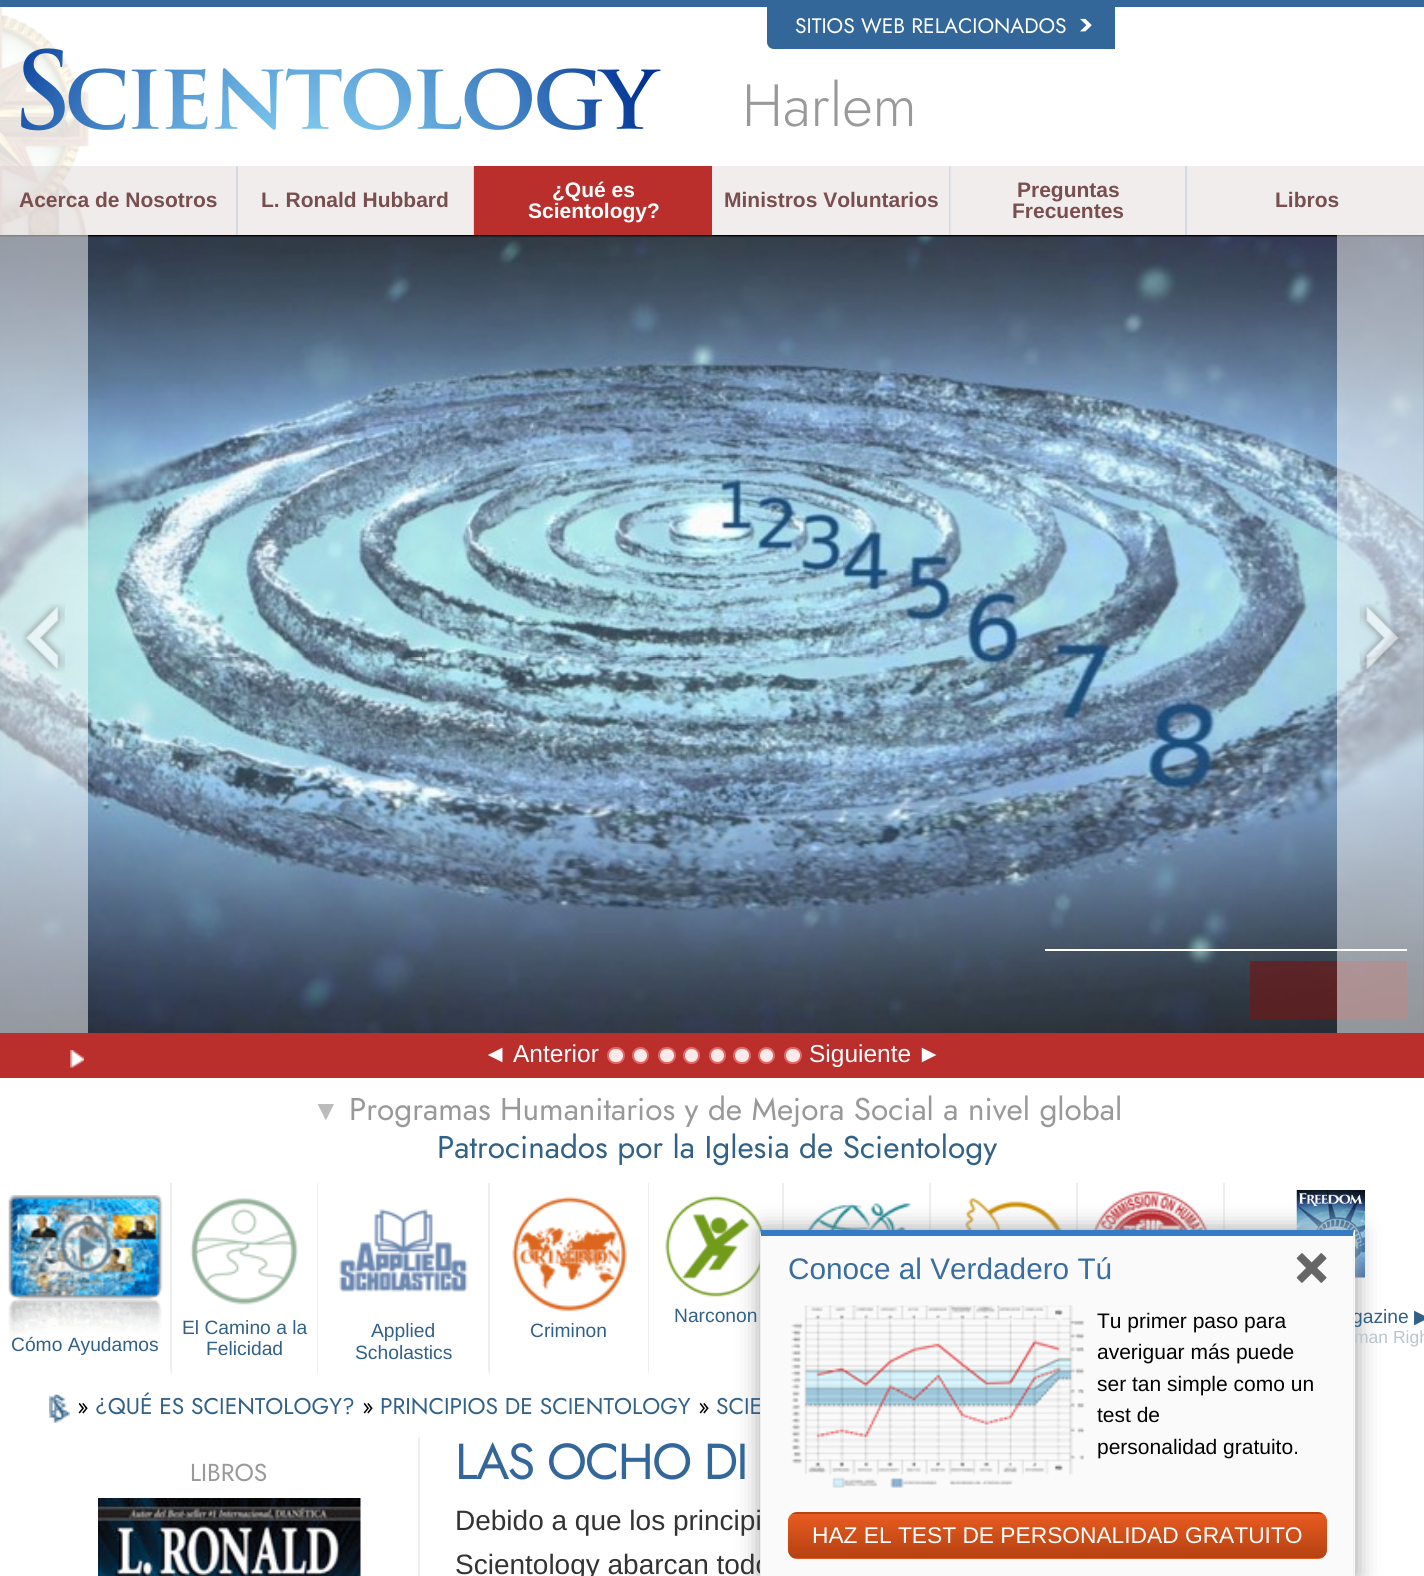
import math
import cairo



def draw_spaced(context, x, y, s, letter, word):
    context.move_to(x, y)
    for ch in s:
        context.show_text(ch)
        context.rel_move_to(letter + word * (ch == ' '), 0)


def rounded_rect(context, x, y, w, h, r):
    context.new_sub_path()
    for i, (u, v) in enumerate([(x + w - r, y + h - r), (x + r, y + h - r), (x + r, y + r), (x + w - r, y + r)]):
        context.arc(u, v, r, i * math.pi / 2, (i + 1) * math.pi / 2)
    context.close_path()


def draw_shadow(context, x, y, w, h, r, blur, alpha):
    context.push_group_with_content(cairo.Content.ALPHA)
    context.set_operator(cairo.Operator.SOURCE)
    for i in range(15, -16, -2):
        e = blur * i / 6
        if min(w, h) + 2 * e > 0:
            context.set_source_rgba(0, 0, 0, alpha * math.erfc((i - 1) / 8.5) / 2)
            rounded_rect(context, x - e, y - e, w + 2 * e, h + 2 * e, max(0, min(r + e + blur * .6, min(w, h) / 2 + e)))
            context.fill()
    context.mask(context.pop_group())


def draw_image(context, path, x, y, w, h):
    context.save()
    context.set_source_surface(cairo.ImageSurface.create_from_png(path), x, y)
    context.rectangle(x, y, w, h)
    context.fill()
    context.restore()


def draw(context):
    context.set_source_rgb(1, 1, 1)
    context.paint()
    context.set_source_rgb(241 / 255, 237 / 255, 237 / 255)
    context.rectangle(952, 166, 233, 69)
    context.fill()
    context.set_source_rgb(234 / 255, 236 / 255, 241 / 255)
    context.rectangle(951, 166, 1, 69)
    context.fill()
    context.set_source_rgb(225 / 255, 229 / 255, 235 / 255)
    context.rectangle(950, 166, 1, 69)
    context.fill()
    context.set_source_rgb(51 / 255, 102 / 255, 153 / 255)
    context.rectangle(0, 0, 1424, 7)
    context.fill()
    context.new_path()
    context.move_to(767, 7)
    context.line_to(1115, 7)
    context.line_to(1115, 49)
    context.line_to(774, 49)
    context.curve_to(770, 49, 767, 46, 767, 42)
    context.close_path()
    context.fill()
    draw_image(context, "images/1.png", 1080, 18, 12, 14)
    draw_image(context, "images/2.png", 0, 7, 89, 228)
    draw_image(context, "images/3.png", 21, 48, 640, 83)
    context.set_source_rgba(219 / 255, 209 / 255, 209 / 255, 0.4)
    context.rectangle(0, 166, 236, 69)
    context.fill()
    context.set_source_rgb(213 / 255, 218 / 255, 226 / 255)
    context.rectangle(236, 166, 2, 69)
    context.fill()
    context.set_source_rgb(241 / 255, 237 / 255, 237 / 255)
    context.rectangle(238, 166, 235, 69)
    context.fill()
    context.set_source_rgb(213 / 255, 218 / 255, 226 / 255)
    context.rectangle(473, 166, 1, 69)
    context.fill()
    context.set_source_rgb(186 / 255, 46 / 255, 44 / 255)
    context.rectangle(474, 166, 238, 69)
    context.fill()
    context.set_source_rgb(241 / 255, 237 / 255, 237 / 255)
    context.rectangle(714, 166, 235, 69)
    context.fill()
    context.set_source_rgb(213 / 255, 218 / 255, 226 / 255)
    context.rectangle(949, 166, 1, 69)
    context.fill()
    context.set_source_rgb(234 / 255, 236 / 255, 241 / 255)
    context.rectangle(712, 166, 2, 69)
    context.fill()
    context.set_source_rgb(213 / 255, 218 / 255, 226 / 255)
    context.rectangle(1185, 166, 2, 69)
    context.fill()
    context.set_source_rgb(241 / 255, 237 / 255, 237 / 255)
    context.rectangle(1189, 166, 235, 69)
    context.fill()
    context.set_source_rgb(234 / 255, 236 / 255, 241 / 255)
    context.rectangle(1187, 166, 2, 69)
    context.fill()
    context.set_source_rgb(186 / 255, 46 / 255, 44 / 255)
    context.rectangle(0, 1033, 1424, 45)
    context.fill()
    draw_image(context, "images/4.png", 70, 1050, 14, 18)
    context.set_source_rgb(0, 0, 0)
    context.rectangle(0, 235, 1424, 798)
    context.fill()
    draw_image(context, "images/5.png", 0, 235, 1424, 798)
    context.set_source_rgb(1, 1, 1)
    context.rectangle(1045, 949, 362, 2)
    context.fill()
    context.set_source_rgba(107 / 255, 27 / 255, 25 / 255, 0.7)
    context.rectangle(1250, 961, 157, 58)
    context.fill()
    context.set_source_rgba(1, 1, 1, 0.5)
    context.rectangle(0, 235, 88, 798)
    context.fill()
    draw_image(context, "images/6.png", 21, 604, 44, 69)
    context.rectangle(1337, 235, 87, 798)
    context.fill()
    draw_image(context, "images/7.png", 1359, 604, 44, 69)
    context.set_source_rgb(250 / 255, 235 / 255, 234 / 255)
    rounded_rect(context, 608, 1048, 16, 15, 7.5)
    context.fill_preserve()
    context.set_source_rgb(230 / 255, 104 / 255, 101 / 255)
    context.stroke()
    context.set_source_rgb(250 / 255, 235 / 255, 234 / 255)
    context.arc(640.5, 1055.5, 7.5, 0, 2 * math.pi)
    context.fill_preserve()
    context.set_source_rgb(230 / 255, 104 / 255, 101 / 255)
    context.stroke()
    context.set_source_rgb(250 / 255, 235 / 255, 234 / 255)
    rounded_rect(context, 659, 1048, 16, 15, 7.5)
    context.fill_preserve()
    context.set_source_rgb(230 / 255, 104 / 255, 101 / 255)
    context.stroke()
    context.set_source_rgb(250 / 255, 235 / 255, 234 / 255)
    context.arc(691.5, 1055.5, 7.5, 0, 2 * math.pi)
    context.fill_preserve()
    context.set_source_rgb(230 / 255, 104 / 255, 101 / 255)
    context.stroke()
    context.set_source_rgb(250 / 255, 235 / 255, 234 / 255)
    context.arc(717.5, 1055.5, 7.5, 0, 2 * math.pi)
    context.fill_preserve()
    context.set_source_rgb(230 / 255, 104 / 255, 101 / 255)
    context.stroke()
    context.set_source_rgb(250 / 255, 235 / 255, 234 / 255)
    rounded_rect(context, 734, 1048, 16, 15, 7.5)
    context.fill_preserve()
    context.set_source_rgb(230 / 255, 104 / 255, 101 / 255)
    context.stroke()
    context.set_source_rgb(250 / 255, 235 / 255, 234 / 255)
    context.arc(766.5, 1055.5, 7.5, 0, 2 * math.pi)
    context.fill_preserve()
    context.set_source_rgb(230 / 255, 104 / 255, 101 / 255)
    context.stroke()
    context.set_source_rgb(250 / 255, 235 / 255, 234 / 255)
    rounded_rect(context, 785, 1048, 16, 15, 7.5)
    context.fill_preserve()
    context.set_source_rgb(230 / 255, 104 / 255, 101 / 255)
    context.stroke()
    context.set_source_rgb(238 / 255, 238 / 255, 238 / 255)
    context.new_path()
    context.move_to(318, 1183)
    context.line_to(318, 1376)
    context.line_to(317, 1370)
    context.line_to(317, 1183)
    context.close_path()
    context.fill()
    draw_image(context, "images/8.png", 190, 1198, 108, 107)
    context.new_path()
    context.move_to(490, 1183)
    context.line_to(490, 1376)
    context.line_to(488, 1370)
    context.line_to(488, 1183)
    context.close_path()
    context.fill()
    draw_image(context, "images/9.png", 339, 1209, 129, 83)
    context.new_path()
    context.move_to(649, 1183)
    context.line_to(649, 1376)
    context.line_to(648, 1370)
    context.line_to(648, 1183)
    context.close_path()
    context.fill()
    draw_image(context, "images/10.png", 512, 1196, 115, 116)
    context.new_path()
    context.move_to(784, 1183)
    context.line_to(784, 1376)
    context.line_to(782, 1370)
    context.line_to(782, 1183)
    context.close_path()
    context.fill()
    draw_image(context, "images/11.png", 665, 1195, 98, 102)
    context.new_path()
    context.move_to(931, 1183)
    context.line_to(931, 1376)
    context.line_to(929, 1370)
    context.line_to(929, 1183)
    context.close_path()
    context.fill()
    draw_image(context, "images/12.png", 806, 1203, 105, 27)
    context.new_path()
    context.move_to(1078, 1183)
    context.line_to(1078, 1376)
    context.line_to(1076, 1370)
    context.line_to(1076, 1183)
    context.close_path()
    context.fill()
    draw_image(context, "images/13.png", 965, 1198, 97, 32)
    context.new_path()
    context.move_to(1225, 1183)
    context.line_to(1225, 1376)
    context.line_to(1223, 1370)
    context.line_to(1223, 1183)
    context.close_path()
    context.fill()
    draw_image(context, "images/14.png", 1093, 1191, 115, 39)
    draw_image(context, "images/15.png", 1296, 1190, 69, 88)
    context.new_path()
    context.move_to(172, 1183)
    context.line_to(172, 1376)
    context.line_to(170, 1370)
    context.line_to(170, 1183)
    context.close_path()
    context.fill()
    draw_image(context, "images/16.png", 8, 1195, 155, 146)
    draw_image(context, "images/17.png", 49, 1394, 21, 29)
    context.set_source_rgb(239 / 255, 239 / 255, 239 / 255)
    context.rectangle(418, 1437, 2, 139)
    context.fill()
    draw_image(context, "images/18.png", 98, 1498, 263, 78)
    context.set_source_rgb(158 / 255, 158 / 255, 158 / 255)
    draw_shadow(context, 761, 1230, 595, 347, 0, 11.5, 1)
    context.select_font_face("Jost")
    context.set_font_size(21)
    context.set_source_rgb(1, 1, 1)
    context.move_to(795, 33)
    context.show_text("SITIOS WEB RELACIONADOS")
    context.select_font_face("Jost Light")
    context.set_font_size(59.5)
    context.set_source_rgb(153 / 255, 153 / 255, 153 / 255)
    context.move_to(742, 126)
    context.show_text("Harlem")
    context.select_font_face("Liberation Sans", cairo.FontSlant.NORMAL, cairo.FontWeight.BOLD)
    context.set_font_size(21)
    context.set_source_rgb(121 / 255, 78 / 255, 78 / 255)
    context.move_to(19, 207)
    context.show_text("Acerca de Nosotros")
    context.move_to(261, 207)
    context.show_text("L. Ronald Hubbard")
    context.set_source_rgb(1, 1, 1)
    context.move_to(552, 197)
    context.show_text("¿Qué es")
    context.move_to(528, 218)
    context.show_text("Scientology?")
    context.set_source_rgb(121 / 255, 78 / 255, 78 / 255)
    context.move_to(724, 207)
    context.show_text("Ministros Voluntarios")
    context.move_to(1017, 197)
    context.show_text("Preguntas")
    context.move_to(1012, 218)
    context.show_text("Frecuentes")
    context.move_to(1275, 207)
    context.show_text("Libros")
    context.select_font_face("Liberation Sans")
    context.set_font_size(24.5)
    context.set_source_rgb(1, 1, 1)
    context.move_to(483, 1062)
    context.show_text("◄")
    context.move_to(513, 1062)
    context.show_text("Anterior")
    context.move_to(809, 1062)
    context.show_text("Siguiente")
    context.move_to(917, 1062)
    context.show_text("►")
    context.set_font_size(28)
    context.set_source_rgb(187 / 255, 187 / 255, 187 / 255)
    context.move_to(312, 1120)
    context.show_text("▼")
    context.select_font_face("Jost")
    context.set_font_size(31.5)
    context.set_source_rgb(153 / 255, 153 / 255, 153 / 255)
    context.move_to(349, 1120)
    context.show_text("Programas Humanitarios y de Mejora Social a nivel global")
    context.set_source_rgb(50 / 255, 97 / 255, 136 / 255)
    context.move_to(437, 1158)
    context.show_text("Patrocinados por la Iglesia de Scientology")
    context.select_font_face("Liberation Sans")
    context.set_font_size(19.25)
    context.move_to(182, 1334)
    context.show_text("El Camino a la")
    context.move_to(206, 1355)
    context.show_text("Felicidad")
    context.move_to(371, 1337)
    context.show_text("Applied")
    context.move_to(355, 1359)
    context.show_text("Scholastics")
    context.move_to(530, 1337)
    context.show_text("Criminon")
    context.move_to(674, 1322)
    context.show_text("Narconon")
    context.move_to(1352, 1323)
    context.show_text("gazine")
    context.select_font_face("DejaVu Sans")
    context.move_to(1414, 1323)
    context.show_text("▶")
    context.select_font_face("Liberation Sans")
    context.set_font_size(17.5)
    context.set_source_rgb(185 / 255, 197 / 255, 205 / 255)
    context.move_to(1354, 1343)
    context.show_text("man Righ")
    context.set_font_size(19.25)
    context.set_source_rgb(50 / 255, 97 / 255, 136 / 255)
    context.move_to(11, 1351)
    context.show_text("Cómo Ayudamos")
    context.select_font_face("Jost")
    context.set_font_size(22.75)
    context.set_source_rgb(0, 0, 0)
    context.move_to(77, 1414)
    context.show_text("»")
    context.set_source_rgb(50 / 255, 97 / 255, 136 / 255)
    context.move_to(95, 1414)
    context.show_text("¿QUÉ ES SCIENTOLOGY?")
    context.set_source_rgb(0, 0, 0)
    context.move_to(362, 1414)
    context.show_text("»")
    context.set_source_rgb(50 / 255, 97 / 255, 136 / 255)
    context.move_to(380, 1414)
    context.show_text("PRINCIPIOS DE SCIENTOLOGY")
    context.set_source_rgb(0, 0, 0)
    context.move_to(698, 1414)
    context.show_text("»")
    context.set_source_rgb(50 / 255, 97 / 255, 136 / 255)
    context.move_to(716, 1414)
    context.show_text("SCIE")
    context.set_font_size(24.5)
    context.set_source_rgb(153 / 255, 153 / 255, 153 / 255)
    context.move_to(190, 1481)
    context.show_text("LIBROS")
    context.set_font_size(50.5)
    context.set_source_rgb(51 / 255, 102 / 255, 153 / 255)
    draw_spaced(context, 455, 1479, "LAS OCHO DI", -1.75, 0)
    context.select_font_face("Liberation Sans")
    context.set_font_size(28)
    context.set_source_rgb(51 / 255, 51 / 255, 51 / 255)
    context.move_to(455, 1530)
    context.show_text("Debido a que los principi")
    context.move_to(455, 1574)
    context.show_text("Scientology abarcan todo")
    context.set_source_rgb(250 / 255, 250 / 255, 250 / 255)
    context.rectangle(760, 1230, 595, 346)
    context.fill()
    context.set_source_rgb(53 / 255, 124 / 255, 196 / 255)
    context.new_path()
    context.move_to(760, 1230)
    context.line_to(1354, 1230)
    context.line_to(1353, 1236)
    context.line_to(761, 1236)
    context.close_path()
    context.fill()
    context.set_source_rgb(239 / 255, 239 / 255, 239 / 255)
    context.new_path()
    context.move_to(1354, 1230)
    context.line_to(1354, 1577)
    context.line_to(1353, 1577)
    context.line_to(1353, 1236)
    context.close_path()
    context.fill()
    context.new_path()
    context.move_to(760, 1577)
    context.line_to(760, 1230)
    context.line_to(761, 1236)
    context.line_to(761, 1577)
    context.close_path()
    context.fill()
    context.set_font_size(29.75)
    context.set_source_rgb(58 / 255, 110 / 255, 161 / 255)
    context.move_to(788, 1279)
    context.show_text("Conoce al Verdadero Tú")
    draw_image(context, "images/19.png", 1296, 1253, 31, 30)
    draw_image(context, "images/20.png", 791, 1305, 294, 183)
    context.set_font_size(21)
    context.set_source_rgb(0, 0, 0)
    context.move_to(1097, 1328)
    context.show_text("Tu primer paso para")
    context.move_to(1097, 1359)
    context.show_text("averiguar más puede")
    context.move_to(1097, 1391)
    context.show_text("ser tan simple como un")
    context.move_to(1097, 1422)
    context.show_text("test de")
    context.move_to(1097, 1454)
    context.show_text("personalidad gratuito.")
    context.save()
    rounded_rect(context, 788, 1512, 539, 47, 9)
    context.clip()
    gradient = cairo.LinearGradient(1057, 1470, 1057, 1514)
    gradient.add_color_stop_rgba(0, 232 / 255, 91 / 255, 32 / 255, 1)
    gradient.add_color_stop_rgba(1, 181 / 255, 66 / 255, 18 / 255, 1)
    context.set_source(gradient)
    context.rectangle(788, 1512, 539, 2)
    context.fill()
    gradient = cairo.LinearGradient(1057, 1514, 1057, 1558)
    gradient.add_color_stop_rgba(0, 232 / 255, 91 / 255, 32 / 255, 1)
    gradient.add_color_stop_rgba(1, 181 / 255, 66 / 255, 18 / 255, 1)
    context.set_source(gradient)
    context.rectangle(788, 1514, 539, 44)
    context.fill()
    gradient = cairo.LinearGradient(1057, 1558, 1057, 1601)
    gradient.add_color_stop_rgba(0, 232 / 255, 91 / 255, 32 / 255, 1)
    gradient.add_color_stop_rgba(1, 181 / 255, 66 / 255, 18 / 255, 1)
    context.set_source(gradient)
    context.rectangle(788, 1558, 539, 1)
    context.fill()
    context.restore()
    context.set_font_size(22.75)
    context.set_source_rgb(1, 1, 1)
    context.move_to(812, 1543)
    context.show_text("HAZ EL TEST DE PERSONALIDAD GRATUITO")


surface = cairo.ImageSurface(cairo.Format.RGB24, 1424, 1576)
context = cairo.Context(surface)
options = cairo.FontOptions()
options.set_hint_metrics(cairo.HintMetrics.OFF)
options.set_hint_style(cairo.HintStyle.NONE)
context.set_font_options(options)
context.set_miter_limit(4)
draw(context)
surface.write_to_png("out.png")
